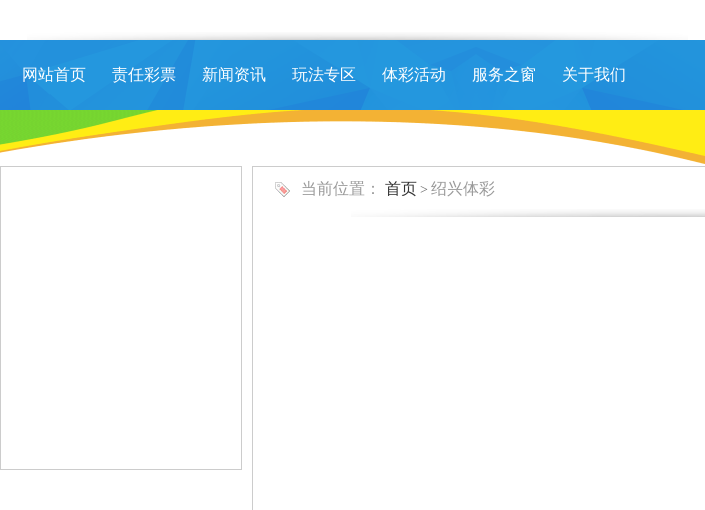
import math
import cairo



def draw_image(context, path, x, y, w, h):
    context.save()
    context.set_source_surface(cairo.ImageSurface.create_from_png(path), x, y)
    context.rectangle(x, y, w, h)
    context.fill()
    context.restore()


def draw(context):
    context.set_source_rgb(1, 1, 1)
    context.paint()
    draw_image(context, "images/1.png", 0, 110, 705, 54)
    draw_image(context, "images/2.png", 27, 32, 661, 8)
    draw_image(context, "images/3.png", 0, 40, 705, 70)
    context.rectangle(0.5, 166.5, 241, 303)
    context.set_source_rgb(204 / 255, 204 / 255, 204 / 255)
    context.set_line_width(1)
    context.stroke()
    context.rectangle(252.5, 166.5, 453, 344)
    context.stroke()
    draw_image(context, "images/4.png", 351, 209, 354, 8)
    draw_image(context, "images/5.png", 275, 182, 15, 15)
    context.select_font_face("WenQuanYi Zen Hei Medium")
    context.set_font_size(16)
    context.set_source_rgb(1, 1, 1)
    context.move_to(22, 80)
    context.show_text("网站首页")
    context.move_to(112, 80)
    context.show_text("责任彩票")
    context.move_to(202, 80)
    context.show_text("新闻资讯")
    context.move_to(292, 80)
    context.show_text("玩法专区")
    context.move_to(382, 80)
    context.show_text("体彩活动")
    context.move_to(472, 80)
    context.show_text("服务之窗")
    context.move_to(562, 80)
    context.show_text("关于我们")
    context.set_source_rgb(153 / 255, 153 / 255, 153 / 255)
    context.move_to(301, 194)
    context.show_text("当前位置：")
    context.set_source_rgb(51 / 255, 51 / 255, 51 / 255)
    context.move_to(385, 194)
    context.show_text("首页")
    context.select_font_face("Liberation Serif")
    context.set_font_size(14)
    context.set_source_rgb(102 / 255, 102 / 255, 102 / 255)
    context.move_to(420, 194)
    context.show_text(">")
    context.select_font_face("WenQuanYi Zen Hei Medium")
    context.set_font_size(16)
    context.set_source_rgb(153 / 255, 153 / 255, 153 / 255)
    context.move_to(431, 194)
    context.show_text("绍兴体彩")


surface = cairo.ImageSurface(cairo.Format.RGB24, 705, 510)
context = cairo.Context(surface)
options = cairo.FontOptions()
options.set_hint_metrics(cairo.HintMetrics.OFF)
options.set_hint_style(cairo.HintStyle.NONE)
context.set_font_options(options)
context.set_miter_limit(4)
draw(context)
surface.write_to_png("out.png")
